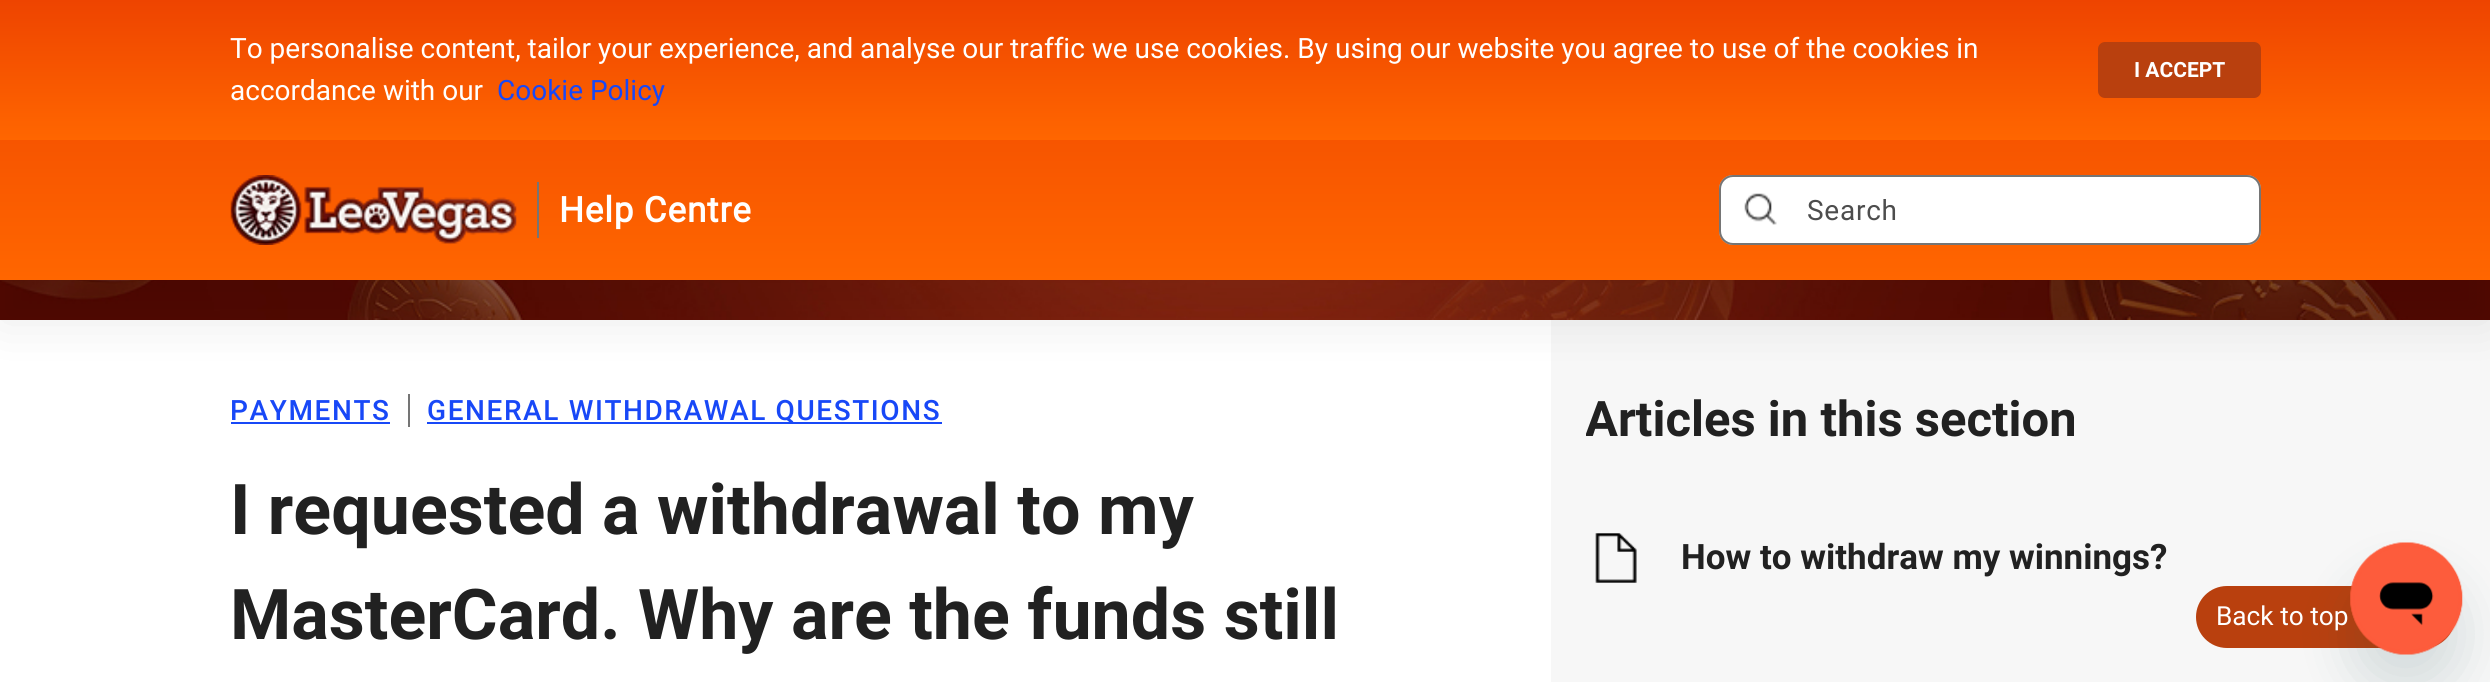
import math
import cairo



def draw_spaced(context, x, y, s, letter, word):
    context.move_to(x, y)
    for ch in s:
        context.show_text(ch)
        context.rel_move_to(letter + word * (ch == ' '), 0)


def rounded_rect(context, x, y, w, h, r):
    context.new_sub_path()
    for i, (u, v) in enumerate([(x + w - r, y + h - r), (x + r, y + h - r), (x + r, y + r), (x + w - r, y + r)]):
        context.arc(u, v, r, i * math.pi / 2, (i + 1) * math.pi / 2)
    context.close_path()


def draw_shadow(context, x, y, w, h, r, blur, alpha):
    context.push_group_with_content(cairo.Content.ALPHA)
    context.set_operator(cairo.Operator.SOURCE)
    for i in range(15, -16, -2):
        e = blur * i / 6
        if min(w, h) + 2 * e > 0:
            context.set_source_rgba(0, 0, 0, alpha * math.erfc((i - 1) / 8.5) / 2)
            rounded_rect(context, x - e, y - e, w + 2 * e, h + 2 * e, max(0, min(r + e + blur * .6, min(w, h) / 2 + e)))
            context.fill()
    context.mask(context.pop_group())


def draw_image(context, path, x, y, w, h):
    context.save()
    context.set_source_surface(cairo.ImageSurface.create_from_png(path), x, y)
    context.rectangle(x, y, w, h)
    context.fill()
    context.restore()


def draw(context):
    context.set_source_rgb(1, 1, 1)
    context.paint()
    draw_image(context, "images/3.png", 0, 280, 2490, 40)
    context.set_source_rgb(247 / 255, 247 / 255, 247 / 255)
    context.rectangle(1551, 320, 939, 362)
    context.fill()
    context.set_source_rgb(117 / 255, 117 / 255, 117 / 255)
    context.rectangle(408, 394, 2, 33)
    context.fill()
    context.set_source_rgb(0, 0, 0)
    draw_shadow(context, 0, 42, 2490, 280, 0, 26, 0.08)
    gradient = cairo.LinearGradient(1245, 0, 1245, 280)
    gradient.add_color_stop_rgba(0, 238 / 255, 68 / 255, 0, 1)
    gradient.add_color_stop_rgba(1, 1, 102 / 255, 0, 1)
    context.set_source(gradient)
    context.rectangle(0, 140, 2490, 140)
    context.fill()
    gradient = cairo.LinearGradient(1245, 0, 1245, 140)
    gradient.add_color_stop_rgba(0, 238 / 255, 68 / 255, 0, 1)
    gradient.add_color_stop_rgba(1, 1, 102 / 255, 0, 1)
    context.set_source(gradient)
    context.rectangle(0, 0, 2490, 140)
    context.fill()
    context.set_source_rgb(185 / 255, 64 / 255, 14 / 255)
    rounded_rect(context, 2098, 42, 163, 56, 7)
    context.fill()
    draw_image(context, "images/1.png", 230, 175, 287, 70)
    context.set_source_rgb(117 / 255, 117 / 255, 117 / 255)
    context.rectangle(537, 182, 2, 56)
    context.fill()
    context.set_source_rgb(1, 1, 1)
    rounded_rect(context, 1719, 175, 542, 70, 14)
    context.fill()
    rounded_rect(context, 1720, 176, 540, 68, 13)
    context.set_source_rgba(0, 0, 0, 0.54)
    context.stroke()
    draw_image(context, "images/2.png", 1744, 193, 33, 32)
    context.set_source_rgb(24 / 255, 72 / 255, 247 / 255)
    context.rectangle(231, 422, 159, 2)
    context.fill()
    context.rectangle(427, 422, 515, 2)
    context.fill()
    draw_image(context, "images/4.png", 1595, 533, 42, 50)
    context.set_source_rgb(185 / 255, 64 / 255, 14 / 255)
    rounded_rect(context, 2196, 586, 259, 62, 31)
    context.fill()
    context.set_source_rgb(23 / 255, 73 / 255, 77 / 255)
    draw_shadow(context, 2350, 578, 112, 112, 56, 26, 0.15)
    draw_image(context, "images/5.png", 2350, 542, 113, 113)
    context.select_font_face("Roboto")
    context.set_font_size(28)
    context.set_source_rgb(1, 1, 1)
    context.move_to(230, 58)
    context.show_text("To personalise content, tailor your experience, and analyse our traffic we use cookies. By using our website you agree to use of the cookies in")
    context.move_to(230, 100)
    context.show_text("accordance with our")
    context.set_source_rgb(24 / 255, 72 / 255, 247 / 255)
    context.move_to(497, 100)
    context.show_text("Cookie Policy")
    context.select_font_face("Roboto", cairo.FontSlant.NORMAL, cairo.FontWeight.BOLD)
    context.set_font_size(21)
    context.set_source_rgb(1, 1, 1)
    context.move_to(2134, 77)
    context.show_text("I ACCEPT")
    context.select_font_face("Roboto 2", cairo.FontSlant.NORMAL, cairo.FontWeight.BOLD)
    context.set_font_size(35)
    draw_spaced(context, 559, 222, "Help Centre", 0.9, 0)
    context.select_font_face("Roboto")
    context.set_font_size(28)
    context.set_source_rgb(77 / 255, 77 / 255, 77 / 255)
    draw_spaced(context, 1807, 220, "Search", 0.75, 0)
    context.select_font_face("Roboto Medium")
    context.set_source_rgb(24 / 255, 72 / 255, 247 / 255)
    draw_spaced(context, 230, 420, "PAYMENTS", 1.6, 0)
    draw_spaced(context, 427, 420, "GENERAL WITHDRAWAL QUESTIONS", 1.6, 0)
    context.select_font_face("Roboto", cairo.FontSlant.NORMAL, cairo.FontWeight.BOLD)
    context.set_font_size(70)
    context.set_source_rgb(33 / 255, 33 / 255, 33 / 255)
    context.move_to(230, 534)
    context.show_text("I requested a withdrawal to my")
    context.move_to(230, 639)
    context.show_text("MasterCard. Why are the funds still")
    context.save()
    context.rectangle(1586, 390, 640, 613)
    context.clip()
    context.set_font_size(49)
    context.move_to(1585, 436)
    context.show_text("Articles in this section")
    context.restore()
    context.set_font_size(35)
    context.move_to(1681, 569)
    context.show_text("How to withdraw my winnings?")
    context.select_font_face("Roboto")
    context.set_font_size(26.25)
    context.set_source_rgb(1, 1, 1)
    context.move_to(2216, 625)
    context.show_text("Back to top")


surface = cairo.ImageSurface(cairo.Format.RGB24, 2490, 682)
context = cairo.Context(surface)
options = cairo.FontOptions()
options.set_hint_metrics(cairo.HintMetrics.OFF)
options.set_hint_style(cairo.HintStyle.NONE)
context.set_font_options(options)
context.set_miter_limit(4)
draw(context)
surface.write_to_png("out.png")
